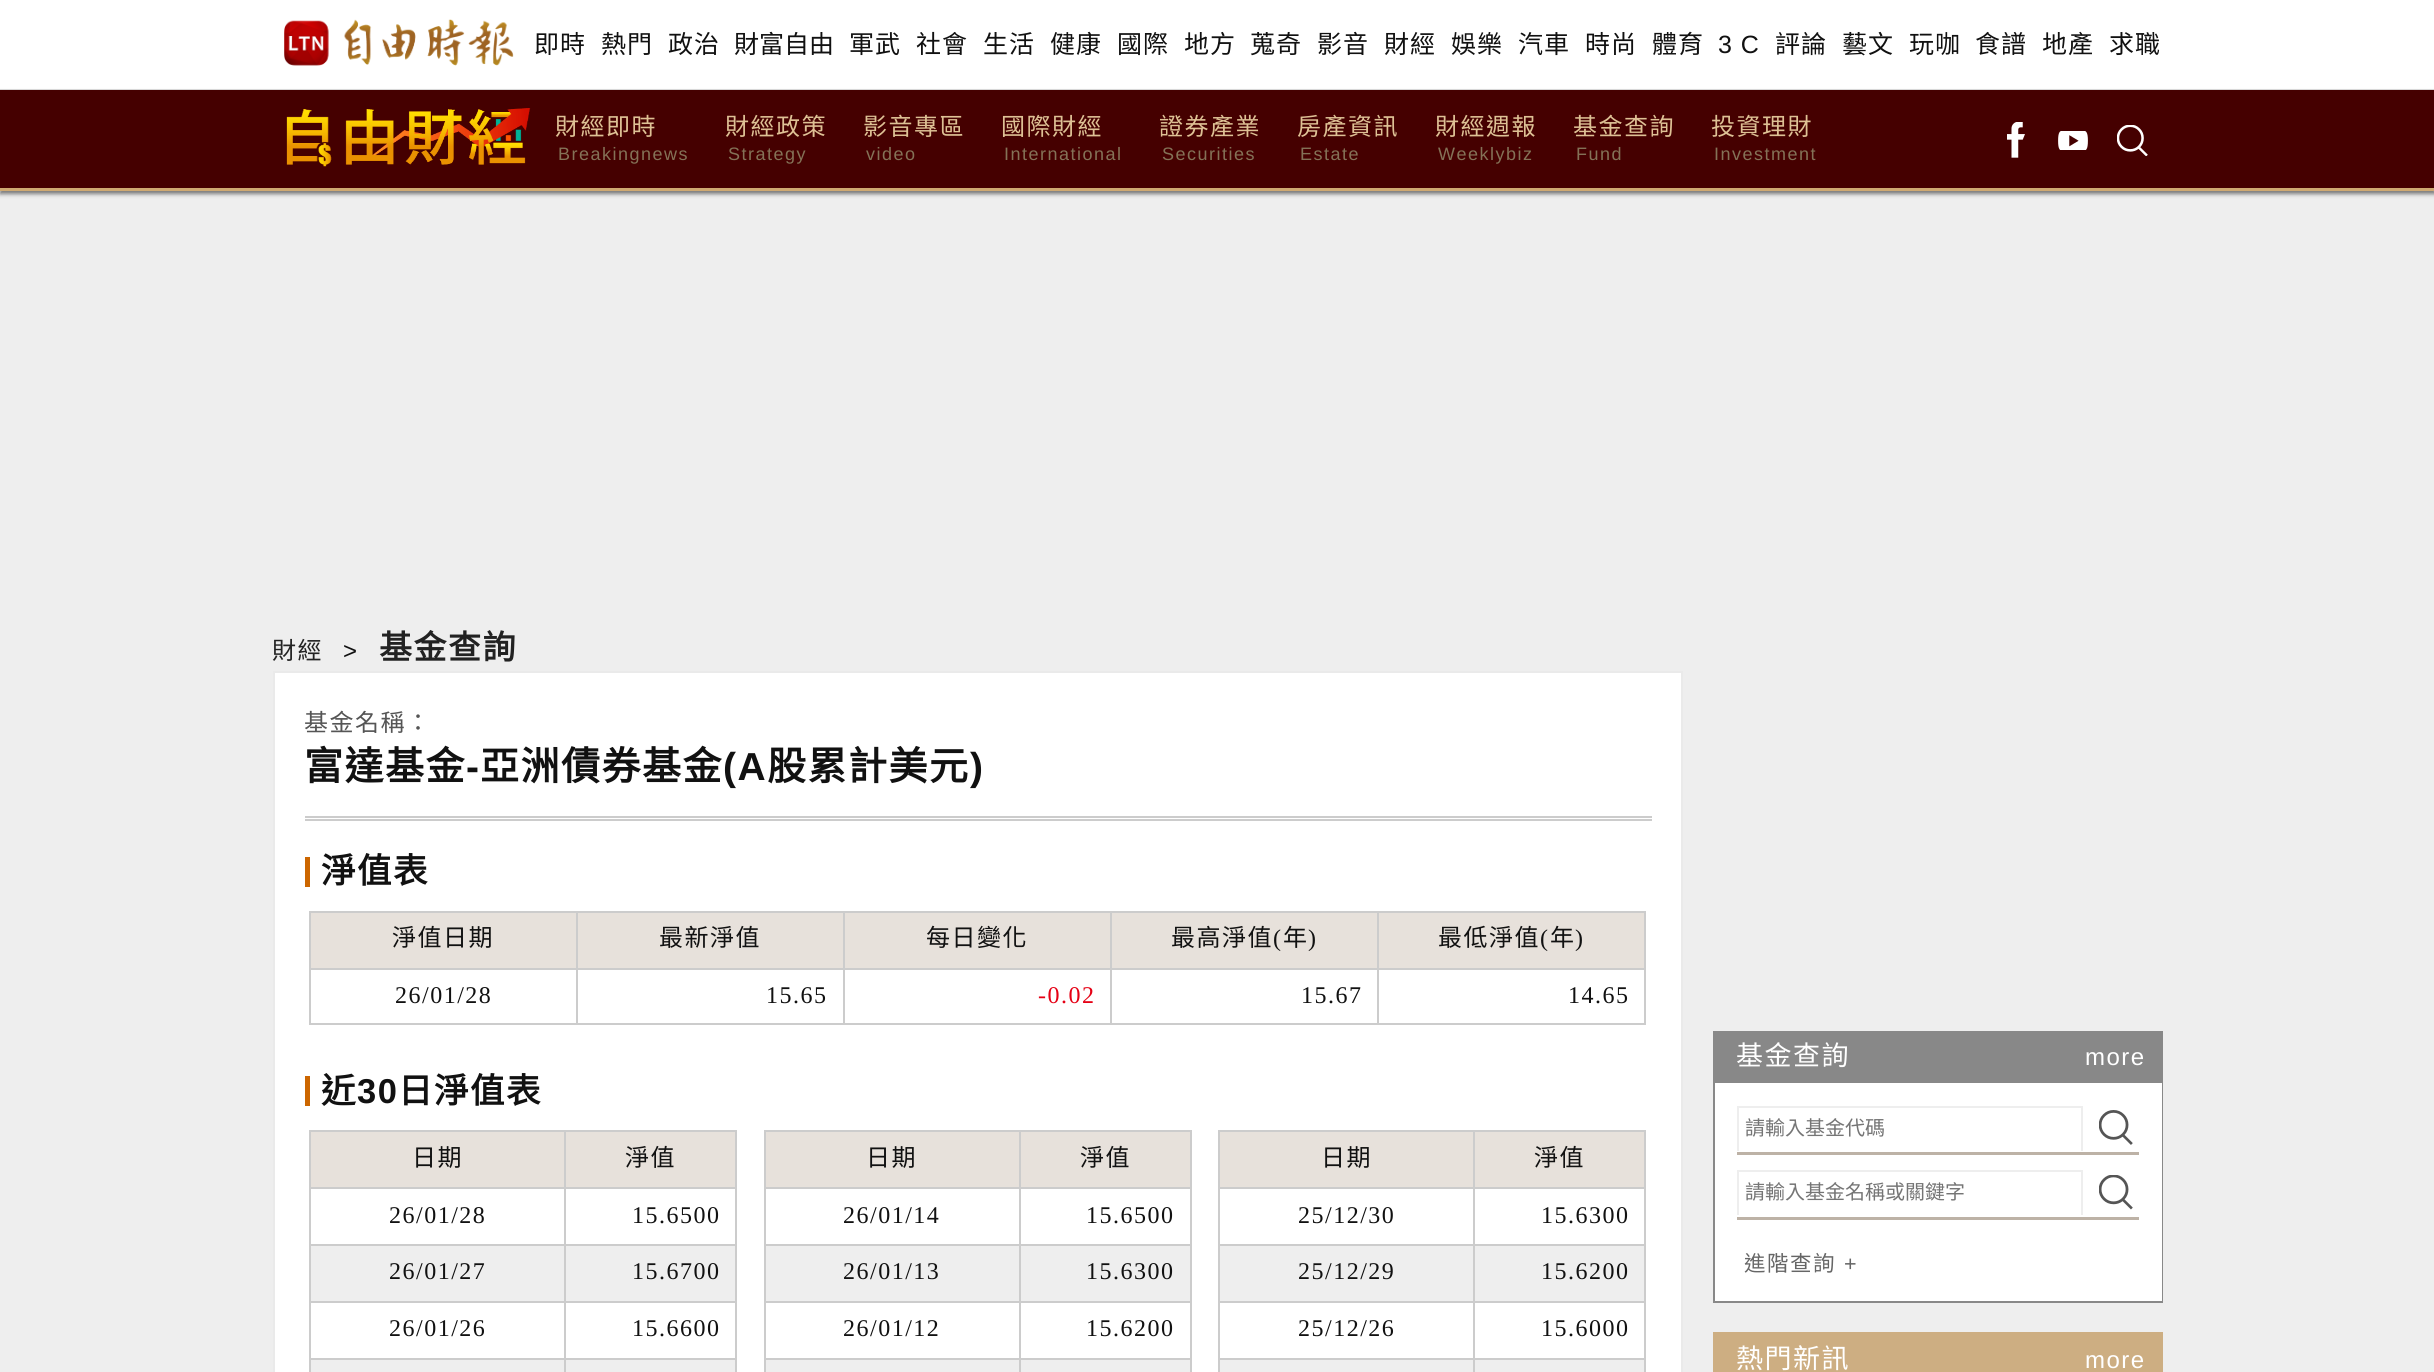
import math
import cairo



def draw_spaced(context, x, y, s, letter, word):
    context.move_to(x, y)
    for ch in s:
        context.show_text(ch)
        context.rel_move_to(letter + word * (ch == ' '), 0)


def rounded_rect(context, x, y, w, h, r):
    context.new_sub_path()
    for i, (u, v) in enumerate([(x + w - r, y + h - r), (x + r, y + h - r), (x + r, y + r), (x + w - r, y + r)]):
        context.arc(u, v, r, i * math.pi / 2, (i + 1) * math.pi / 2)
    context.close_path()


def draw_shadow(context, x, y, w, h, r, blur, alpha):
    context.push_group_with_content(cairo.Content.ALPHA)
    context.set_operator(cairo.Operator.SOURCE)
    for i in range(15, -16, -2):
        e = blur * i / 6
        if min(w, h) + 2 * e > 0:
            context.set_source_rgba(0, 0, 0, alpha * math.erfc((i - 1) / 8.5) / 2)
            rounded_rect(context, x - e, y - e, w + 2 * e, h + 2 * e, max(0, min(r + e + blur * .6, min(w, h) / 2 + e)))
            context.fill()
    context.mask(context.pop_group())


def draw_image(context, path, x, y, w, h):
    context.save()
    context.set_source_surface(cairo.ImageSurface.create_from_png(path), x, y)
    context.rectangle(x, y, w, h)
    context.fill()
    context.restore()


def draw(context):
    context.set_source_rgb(238 / 255, 238 / 255, 238 / 255)
    context.paint()
    context.set_source_rgb(1, 1, 1)
    context.rectangle(0, 0, 2434, 89)
    context.fill()
    context.set_source_rgb(220 / 255, 220 / 255, 220 / 255)
    context.rectangle(0, 89, 2434, 1)
    context.fill()
    draw_image(context, "images/1.png", 284, 19, 230, 47)
    context.set_source_rgb(0, 0, 0)
    draw_shadow(context, 0, 93, 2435, 101, 0, 2, 0.5)
    context.set_source_rgb(69 / 255, 0, 0)
    context.rectangle(0, 90, 2434, 98)
    context.fill()
    context.set_source_rgb(207 / 255, 169 / 255, 114 / 255)
    context.rectangle(0, 188, 2434, 3)
    context.fill()
    draw_image(context, "images/2.png", 286, 108, 245, 59)
    draw_image(context, "images/3.png", 2007, 122, 18, 36)
    draw_image(context, "images/4.png", 2058, 131, 30, 19)
    draw_image(context, "images/5.png", 2117, 125, 31, 31)
    context.set_source_rgb(1, 1, 1)
    context.rectangle(274, 672, 1408, 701)
    context.fill_preserve()
    context.set_source_rgb(234 / 255, 234 / 255, 234 / 255)
    context.stroke()
    context.set_source_rgb(204 / 255, 204 / 255, 204 / 255)
    context.rectangle(305, 816, 1347, 2)
    context.fill()
    context.rectangle(305, 819, 1347, 2)
    context.fill()
    context.set_source_rgb(204 / 255, 102 / 255, 0)
    context.rectangle(305, 857, 5, 30)
    context.fill()
    context.set_source_rgb(231 / 255, 225 / 255, 219 / 255)
    context.rectangle(311, 913, 265, 55)
    context.fill()
    context.set_source_rgb(204 / 255, 204 / 255, 204 / 255)
    context.rectangle(1377, 911, 269, 2)
    context.fill()
    context.rectangle(1377, 968, 269, 2)
    context.fill()
    context.rectangle(1644, 968, 2, 57)
    context.fill()
    context.rectangle(1377, 1023, 269, 2)
    context.fill()
    context.rectangle(1377, 968, 2, 57)
    context.fill()
    context.rectangle(1110, 968, 269, 2)
    context.fill()
    context.rectangle(1377, 911, 2, 58)
    context.fill()
    context.rectangle(1110, 911, 269, 2)
    context.fill()
    context.rectangle(1110, 1023, 269, 2)
    context.fill()
    context.rectangle(1110, 968, 2, 57)
    context.fill()
    context.rectangle(843, 968, 269, 2)
    context.fill()
    context.rectangle(1110, 911, 2, 58)
    context.fill()
    context.rectangle(843, 911, 269, 2)
    context.fill()
    context.rectangle(843, 1023, 269, 2)
    context.fill()
    context.rectangle(843, 968, 2, 57)
    context.fill()
    context.rectangle(576, 968, 269, 2)
    context.fill()
    context.rectangle(843, 911, 2, 58)
    context.fill()
    context.rectangle(576, 911, 269, 2)
    context.fill()
    context.rectangle(576, 1023, 269, 2)
    context.fill()
    context.rectangle(576, 968, 2, 57)
    context.fill()
    context.rectangle(309, 968, 269, 2)
    context.fill()
    context.rectangle(576, 911, 2, 58)
    context.fill()
    context.rectangle(309, 911, 269, 2)
    context.fill()
    context.rectangle(309, 1023, 269, 2)
    context.fill()
    context.rectangle(309, 968, 2, 57)
    context.fill()
    context.rectangle(309, 911, 2, 58)
    context.fill()
    context.set_source_rgb(231 / 255, 225 / 255, 219 / 255)
    context.rectangle(578, 913, 265, 55)
    context.fill()
    context.rectangle(845, 913, 265, 55)
    context.fill()
    context.rectangle(1112, 913, 265, 55)
    context.fill()
    context.rectangle(1379, 913, 265, 55)
    context.fill()
    context.set_source_rgb(204 / 255, 204 / 255, 204 / 255)
    context.rectangle(1644, 911, 2, 58)
    context.fill()
    context.set_source_rgb(204 / 255, 102 / 255, 0)
    context.rectangle(305, 1076, 5, 30)
    context.fill()
    context.set_source_rgb(231 / 255, 225 / 255, 219 / 255)
    context.rectangle(311, 1132, 253, 55)
    context.fill()
    context.set_source_rgb(204 / 255, 204 / 255, 204 / 255)
    context.rectangle(564, 1130, 173, 2)
    context.fill()
    context.rectangle(564, 1187, 173, 2)
    context.fill()
    context.rectangle(564, 1244, 173, 2)
    context.fill()
    context.set_source_rgb(238 / 255, 238 / 255, 238 / 255)
    context.rectangle(311, 1246, 424, 55)
    context.fill()
    context.set_source_rgb(204 / 255, 204 / 255, 204 / 255)
    context.rectangle(564, 1301, 173, 2)
    context.fill()
    context.rectangle(564, 1358, 173, 2)
    context.fill()
    context.set_source_rgb(238 / 255, 238 / 255, 238 / 255)
    context.rectangle(311, 1360, 424, 12)
    context.fill()
    context.set_source_rgb(204 / 255, 204 / 255, 204 / 255)
    context.rectangle(564, 1358, 2, 14)
    context.fill()
    context.rectangle(309, 1358, 257, 2)
    context.fill()
    context.rectangle(564, 1301, 2, 58)
    context.fill()
    context.rectangle(309, 1301, 257, 2)
    context.fill()
    context.rectangle(564, 1244, 2, 58)
    context.fill()
    context.rectangle(309, 1244, 257, 2)
    context.fill()
    context.rectangle(564, 1187, 2, 58)
    context.fill()
    context.rectangle(309, 1187, 257, 2)
    context.fill()
    context.rectangle(564, 1130, 2, 58)
    context.fill()
    context.rectangle(309, 1130, 257, 2)
    context.fill()
    context.rectangle(309, 1358, 2, 14)
    context.fill()
    context.rectangle(309, 1301, 2, 58)
    context.fill()
    context.rectangle(309, 1244, 2, 58)
    context.fill()
    context.rectangle(309, 1187, 2, 58)
    context.fill()
    context.rectangle(309, 1130, 2, 58)
    context.fill()
    context.set_source_rgb(231 / 255, 225 / 255, 219 / 255)
    context.rectangle(566, 1132, 169, 55)
    context.fill()
    context.set_source_rgb(204 / 255, 204 / 255, 204 / 255)
    context.rectangle(735, 1358, 2, 14)
    context.fill()
    context.rectangle(735, 1301, 2, 58)
    context.fill()
    context.rectangle(735, 1244, 2, 58)
    context.fill()
    context.rectangle(735, 1187, 2, 58)
    context.fill()
    context.rectangle(735, 1130, 2, 58)
    context.fill()
    context.set_source_rgb(231 / 255, 225 / 255, 219 / 255)
    context.rectangle(766, 1132, 253, 55)
    context.fill()
    context.set_source_rgb(204 / 255, 204 / 255, 204 / 255)
    context.rectangle(1019, 1130, 172, 2)
    context.fill()
    context.rectangle(1019, 1187, 172, 2)
    context.fill()
    context.rectangle(1019, 1244, 172, 2)
    context.fill()
    context.set_source_rgb(238 / 255, 238 / 255, 238 / 255)
    context.rectangle(766, 1246, 424, 55)
    context.fill()
    context.set_source_rgb(204 / 255, 204 / 255, 204 / 255)
    context.rectangle(1019, 1301, 172, 2)
    context.fill()
    context.rectangle(1019, 1358, 172, 2)
    context.fill()
    context.set_source_rgb(238 / 255, 238 / 255, 238 / 255)
    context.rectangle(766, 1360, 424, 12)
    context.fill()
    context.set_source_rgb(204 / 255, 204 / 255, 204 / 255)
    context.rectangle(1019, 1358, 2, 14)
    context.fill()
    context.rectangle(764, 1358, 256, 2)
    context.fill()
    context.rectangle(1019, 1301, 2, 58)
    context.fill()
    context.rectangle(764, 1301, 256, 2)
    context.fill()
    context.rectangle(1019, 1244, 2, 58)
    context.fill()
    context.rectangle(764, 1244, 256, 2)
    context.fill()
    context.rectangle(1019, 1187, 2, 58)
    context.fill()
    context.rectangle(764, 1187, 256, 2)
    context.fill()
    context.rectangle(1019, 1130, 2, 58)
    context.fill()
    context.rectangle(764, 1130, 256, 2)
    context.fill()
    context.rectangle(764, 1358, 2, 14)
    context.fill()
    context.rectangle(764, 1301, 2, 58)
    context.fill()
    context.rectangle(764, 1244, 2, 58)
    context.fill()
    context.rectangle(764, 1187, 2, 58)
    context.fill()
    context.rectangle(764, 1130, 2, 58)
    context.fill()
    context.set_source_rgb(231 / 255, 225 / 255, 219 / 255)
    context.rectangle(1021, 1132, 169, 55)
    context.fill()
    context.set_source_rgb(204 / 255, 204 / 255, 204 / 255)
    context.rectangle(1190, 1358, 2, 14)
    context.fill()
    context.rectangle(1190, 1301, 2, 58)
    context.fill()
    context.rectangle(1190, 1244, 2, 58)
    context.fill()
    context.rectangle(1190, 1187, 2, 58)
    context.fill()
    context.rectangle(1190, 1130, 2, 58)
    context.fill()
    context.set_source_rgb(231 / 255, 225 / 255, 219 / 255)
    context.rectangle(1220, 1132, 253, 55)
    context.fill()
    context.set_source_rgb(204 / 255, 204 / 255, 204 / 255)
    context.rectangle(1473, 1130, 173, 2)
    context.fill()
    context.rectangle(1473, 1187, 173, 2)
    context.fill()
    context.rectangle(1473, 1244, 173, 2)
    context.fill()
    context.set_source_rgb(238 / 255, 238 / 255, 238 / 255)
    context.rectangle(1220, 1246, 424, 55)
    context.fill()
    context.set_source_rgb(204 / 255, 204 / 255, 204 / 255)
    context.rectangle(1473, 1301, 173, 2)
    context.fill()
    context.rectangle(1473, 1358, 173, 2)
    context.fill()
    context.set_source_rgb(238 / 255, 238 / 255, 238 / 255)
    context.rectangle(1220, 1360, 424, 12)
    context.fill()
    context.set_source_rgb(204 / 255, 204 / 255, 204 / 255)
    context.rectangle(1473, 1358, 2, 14)
    context.fill()
    context.rectangle(1218, 1358, 257, 2)
    context.fill()
    context.rectangle(1473, 1301, 2, 58)
    context.fill()
    context.rectangle(1218, 1301, 257, 2)
    context.fill()
    context.rectangle(1473, 1244, 2, 58)
    context.fill()
    context.rectangle(1218, 1244, 257, 2)
    context.fill()
    context.rectangle(1473, 1187, 2, 58)
    context.fill()
    context.rectangle(1218, 1187, 257, 2)
    context.fill()
    context.rectangle(1473, 1130, 2, 58)
    context.fill()
    context.rectangle(1218, 1130, 257, 2)
    context.fill()
    context.rectangle(1218, 1358, 2, 14)
    context.fill()
    context.rectangle(1218, 1301, 2, 58)
    context.fill()
    context.rectangle(1218, 1244, 2, 58)
    context.fill()
    context.rectangle(1218, 1187, 2, 58)
    context.fill()
    context.rectangle(1218, 1130, 2, 58)
    context.fill()
    context.set_source_rgb(231 / 255, 225 / 255, 219 / 255)
    context.rectangle(1475, 1132, 169, 55)
    context.fill()
    context.set_source_rgb(204 / 255, 204 / 255, 204 / 255)
    context.rectangle(1644, 1358, 2, 14)
    context.fill()
    context.rectangle(1644, 1301, 2, 58)
    context.fill()
    context.rectangle(1644, 1244, 2, 58)
    context.fill()
    context.rectangle(1644, 1187, 2, 58)
    context.fill()
    context.rectangle(1644, 1130, 2, 58)
    context.fill()
    context.set_source_rgb(1, 1, 1)
    context.rectangle(1715, 1083, 447, 218)
    context.fill()
    context.set_source_rgb(136 / 255, 136 / 255, 136 / 255)
    context.rectangle(2162, 1031, 1, 271)
    context.fill()
    context.rectangle(1713, 1301, 450, 2)
    context.fill()
    context.rectangle(1713, 1031, 2, 271)
    context.fill()
    context.rectangle(1715, 1031, 447, 52)
    context.fill()
    context.set_source_rgb(189 / 255, 178 / 255, 166 / 255)
    context.rectangle(1737, 1152, 402, 3)
    context.fill()
    context.set_source_rgb(238 / 255, 238 / 255, 238 / 255)
    context.rectangle(1737, 1106, 345, 2)
    context.fill()
    context.rectangle(2081, 1106, 2, 45)
    context.fill()
    context.rectangle(1737, 1106, 2, 45)
    context.fill()
    draw_image(context, "images/6.png", 2099, 1110, 34, 35)
    context.set_source_rgb(189 / 255, 178 / 255, 166 / 255)
    context.rectangle(1737, 1217, 402, 3)
    context.fill()
    context.set_source_rgb(238 / 255, 238 / 255, 238 / 255)
    context.rectangle(1737, 1170, 345, 2)
    context.fill()
    context.rectangle(2081, 1170, 2, 45)
    context.fill()
    context.rectangle(1737, 1170, 2, 45)
    context.fill()
    draw_image(context, "images/7.png", 2099, 1175, 34, 35)
    context.rectangle(1714, 1333, 448, 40)
    context.set_source_rgb(205 / 255, 174 / 255, 130 / 255)
    context.stroke()
    context.rectangle(1715, 1334, 446, 38)
    context.fill()
    context.select_font_face("Noto Sans CJK TC")
    context.set_font_size(25)
    context.set_source_rgb(17 / 255, 17 / 255, 17 / 255)
    draw_spaced(context, 534, 53, "即時", 1, 0)
    draw_spaced(context, 601, 53, "熱門", 1, 0)
    draw_spaced(context, 668, 53, "政治", 1, 0)
    context.move_to(734, 53)
    context.show_text("財富自由")
    draw_spaced(context, 849, 53, "軍武", 1, 0)
    draw_spaced(context, 916, 53, "社會", 1, 0)
    draw_spaced(context, 983, 53, "生活", 1, 0)
    draw_spaced(context, 1050, 53, "健康", 1, 0)
    draw_spaced(context, 1117, 53, "國際", 1, 0)
    draw_spaced(context, 1184, 53, "地方", 1, 0)
    draw_spaced(context, 1250, 53, "蒐奇", 1, 0)
    draw_spaced(context, 1317, 53, "影音", 1, 0)
    draw_spaced(context, 1384, 53, "財經", 1, 0)
    draw_spaced(context, 1451, 53, "娛樂", 1, 0)
    draw_spaced(context, 1518, 53, "汽車", 1, 0)
    draw_spaced(context, 1585, 53, "時尚", 1, 0)
    draw_spaced(context, 1652, 53, "體育", 1, 0)
    context.select_font_face("Liberation Sans")
    draw_spaced(context, 1718, 53, "3 C", 1, 0)
    context.select_font_face("Noto Sans CJK TC")
    draw_spaced(context, 1775, 53, "評論", 1, 0)
    draw_spaced(context, 1842, 53, "藝文", 1, 0)
    draw_spaced(context, 1909, 53, "玩咖", 1, 0)
    draw_spaced(context, 1975, 53, "食譜", 1, 0)
    draw_spaced(context, 2042, 53, "地產", 1, 0)
    draw_spaced(context, 2109, 53, "求職", 1, 0)
    context.set_font_size(24)
    context.set_source_rgb(222 / 255, 193 / 255, 149 / 255)
    draw_spaced(context, 555, 135, "財經即時", 1.5, 0)
    context.select_font_face("Liberation Sans")
    context.set_font_size(18)
    context.set_source_rgb(132 / 255, 114 / 255, 87 / 255)
    draw_spaced(context, 558, 160, "Breakingnews", 1.5, 0)
    context.select_font_face("Noto Sans CJK TC")
    context.set_font_size(24)
    context.set_source_rgb(222 / 255, 193 / 255, 149 / 255)
    draw_spaced(context, 725, 135, "財經政策", 1.5, 0)
    context.select_font_face("Liberation Sans")
    context.set_font_size(18)
    context.set_source_rgb(132 / 255, 114 / 255, 87 / 255)
    draw_spaced(context, 728, 160, "Strategy", 1.5, 0)
    context.select_font_face("Noto Sans CJK TC")
    context.set_font_size(24)
    context.set_source_rgb(222 / 255, 193 / 255, 149 / 255)
    draw_spaced(context, 863, 135, "影音專區", 1.5, 0)
    context.select_font_face("Liberation Sans")
    context.set_font_size(18)
    context.set_source_rgb(132 / 255, 114 / 255, 87 / 255)
    draw_spaced(context, 866, 160, "video", 1.5, 0)
    context.select_font_face("Noto Sans CJK TC")
    context.set_font_size(24)
    context.set_source_rgb(222 / 255, 193 / 255, 149 / 255)
    draw_spaced(context, 1001, 135, "國際財經", 1.5, 0)
    context.select_font_face("Liberation Sans")
    context.set_font_size(18)
    context.set_source_rgb(132 / 255, 114 / 255, 87 / 255)
    draw_spaced(context, 1004, 160, "International", 1.5, 0)
    context.select_font_face("Noto Sans CJK TC")
    context.set_font_size(24)
    context.set_source_rgb(222 / 255, 193 / 255, 149 / 255)
    draw_spaced(context, 1159, 135, "證券產業", 1.5, 0)
    context.select_font_face("Liberation Sans")
    context.set_font_size(18)
    context.set_source_rgb(132 / 255, 114 / 255, 87 / 255)
    draw_spaced(context, 1162, 160, "Securities", 1.5, 0)
    context.select_font_face("Noto Sans CJK TC")
    context.set_font_size(24)
    context.set_source_rgb(222 / 255, 193 / 255, 149 / 255)
    draw_spaced(context, 1297, 135, "房產資訊", 1.5, 0)
    context.select_font_face("Liberation Sans")
    context.set_font_size(18)
    context.set_source_rgb(132 / 255, 114 / 255, 87 / 255)
    draw_spaced(context, 1300, 160, "Estate", 1.5, 0)
    context.select_font_face("Noto Sans CJK TC")
    context.set_font_size(24)
    context.set_source_rgb(222 / 255, 193 / 255, 149 / 255)
    draw_spaced(context, 1435, 135, "財經週報", 1.5, 0)
    context.select_font_face("Liberation Sans")
    context.set_font_size(18)
    context.set_source_rgb(132 / 255, 114 / 255, 87 / 255)
    draw_spaced(context, 1438, 160, "Weeklybiz", 1.5, 0)
    context.select_font_face("Noto Sans CJK TC")
    context.set_font_size(24)
    context.set_source_rgb(222 / 255, 193 / 255, 149 / 255)
    draw_spaced(context, 1573, 135, "基金查詢", 1.5, 0)
    context.select_font_face("Liberation Sans")
    context.set_font_size(18)
    context.set_source_rgb(132 / 255, 114 / 255, 87 / 255)
    draw_spaced(context, 1576, 160, "Fund", 1.5, 0)
    context.select_font_face("Noto Sans CJK TC")
    context.set_font_size(24)
    context.set_source_rgb(222 / 255, 193 / 255, 149 / 255)
    draw_spaced(context, 1711, 135, "投資理財", 1.5, 0)
    context.select_font_face("Liberation Sans")
    context.set_font_size(18)
    context.set_source_rgb(132 / 255, 114 / 255, 87 / 255)
    draw_spaced(context, 1714, 160, "Investment", 1.5, 0)
    context.select_font_face("Noto Sans CJK TC")
    context.set_font_size(24)
    context.set_source_rgb(34 / 255, 34 / 255, 34 / 255)
    draw_spaced(context, 272, 659, "財經", 1.5, 0)
    context.select_font_face("Liberation Sans")
    context.set_source_rgb(17 / 255, 17 / 255, 17 / 255)
    draw_spaced(context, 343, 659, ">", 1.5, 0)
    context.select_font_face("Noto Sans CJK TC", cairo.FontSlant.NORMAL, cairo.FontWeight.BOLD)
    context.set_font_size(33)
    context.set_source_rgb(34 / 255, 34 / 255, 34 / 255)
    draw_spaced(context, 379, 659, "基金查詢", 1.5, 0)
    context.select_font_face("Noto Sans CJK TC")
    context.set_font_size(24)
    context.set_source_rgb(85 / 255, 85 / 255, 85 / 255)
    draw_spaced(context, 304, 731, "基金名稱：", 1.5, 0)
    context.select_font_face("Noto Sans CJK TC", cairo.FontSlant.NORMAL, cairo.FontWeight.BOLD)
    context.set_font_size(39)
    context.set_source_rgb(17 / 255, 17 / 255, 17 / 255)
    draw_spaced(context, 304, 780, "富達基金", 1.5, 0)
    context.select_font_face("Liberation Sans", cairo.FontSlant.NORMAL, cairo.FontWeight.BOLD)
    draw_spaced(context, 466, 780, "-", 1.5, 0)
    context.select_font_face("Noto Sans CJK TC", cairo.FontSlant.NORMAL, cairo.FontWeight.BOLD)
    draw_spaced(context, 480, 780, "亞洲債券基金", 1.5, 0)
    context.select_font_face("Liberation Sans", cairo.FontSlant.NORMAL, cairo.FontWeight.BOLD)
    draw_spaced(context, 723, 780, "(A", 1.5, 0)
    context.select_font_face("Noto Sans CJK TC", cairo.FontSlant.NORMAL, cairo.FontWeight.BOLD)
    draw_spaced(context, 767, 780, "股累計美元", 1.5, 0)
    context.select_font_face("Liberation Sans", cairo.FontSlant.NORMAL, cairo.FontWeight.BOLD)
    draw_spaced(context, 970, 780, ")", 1.5, 0)
    context.select_font_face("Noto Sans CJK TC", cairo.FontSlant.NORMAL, cairo.FontWeight.BOLD)
    context.set_font_size(34.5)
    draw_spaced(context, 321, 883, "淨值表", 1.5, 0)
    context.select_font_face("Noto Sans CJK TC")
    context.set_font_size(24)
    draw_spaced(context, 392, 946, "淨值日期", 1.5, 0)
    draw_spaced(context, 659, 946, "最新淨值", 1.5, 0)
    draw_spaced(context, 926, 946, "每日變化", 1.5, 0)
    draw_spaced(context, 1171, 946, "最高淨值", 1.5, 0)
    context.select_font_face("Liberation Serif")
    draw_spaced(context, 1273, 946, "(", 1.5, 0)
    context.select_font_face("Noto Sans CJK TC")
    draw_spaced(context, 1283, 946, "年", 1.5, 0)
    context.select_font_face("Liberation Serif")
    draw_spaced(context, 1308, 946, ")", 1.5, 0)
    context.select_font_face("Noto Sans CJK TC")
    draw_spaced(context, 1438, 946, "最低淨值", 1.5, 0)
    context.select_font_face("Liberation Serif")
    draw_spaced(context, 1540, 946, "(", 1.5, 0)
    context.select_font_face("Noto Sans CJK TC")
    draw_spaced(context, 1550, 946, "年", 1.5, 0)
    context.select_font_face("Liberation Serif")
    draw_spaced(context, 1575, 946, ")", 1.5, 0)
    draw_spaced(context, 395, 1003, "26/01/28", 1.5, 0)
    draw_spaced(context, 766, 1003, "15.65", 1.5, 0)
    context.set_source_rgb(229 / 255, 0, 20 / 255)
    draw_spaced(context, 1038, 1003, "-0.02", 1.5, 0)
    context.set_source_rgb(17 / 255, 17 / 255, 17 / 255)
    draw_spaced(context, 1301, 1003, "15.67", 1.5, 0)
    draw_spaced(context, 1568, 1003, "14.65", 1.5, 0)
    context.select_font_face("Noto Sans CJK TC", cairo.FontSlant.NORMAL, cairo.FontWeight.BOLD)
    context.set_font_size(34.5)
    draw_spaced(context, 321, 1103, "近", 1.5, 0)
    context.select_font_face("Liberation Sans", cairo.FontSlant.NORMAL, cairo.FontWeight.BOLD)
    draw_spaced(context, 357, 1103, "30", 1.5, 0)
    context.select_font_face("Noto Sans CJK TC", cairo.FontSlant.NORMAL, cairo.FontWeight.BOLD)
    draw_spaced(context, 398, 1103, "日淨值表", 1.5, 0)
    context.select_font_face("Noto Sans CJK TC")
    context.set_font_size(24)
    draw_spaced(context, 412, 1166, "日期", 1.5, 0)
    draw_spaced(context, 625, 1166, "淨值", 1.5, 0)
    context.select_font_face("Liberation Serif")
    draw_spaced(context, 389, 1223, "26/01/28", 1.5, 0)
    draw_spaced(context, 632, 1223, "15.6500", 1.5, 0)
    draw_spaced(context, 389, 1279, "26/01/27", 1.5, 0)
    draw_spaced(context, 632, 1279, "15.6700", 1.5, 0)
    draw_spaced(context, 389, 1336, "26/01/26", 1.5, 0)
    draw_spaced(context, 632, 1336, "15.6600", 1.5, 0)
    context.select_font_face("Noto Sans CJK TC")
    draw_spaced(context, 866, 1166, "日期", 1.5, 0)
    draw_spaced(context, 1080, 1166, "淨值", 1.5, 0)
    context.select_font_face("Liberation Serif")
    draw_spaced(context, 843, 1223, "26/01/14", 1.5, 0)
    draw_spaced(context, 1086, 1223, "15.6500", 1.5, 0)
    draw_spaced(context, 843, 1279, "26/01/13", 1.5, 0)
    draw_spaced(context, 1086, 1279, "15.6300", 1.5, 0)
    draw_spaced(context, 843, 1336, "26/01/12", 1.5, 0)
    draw_spaced(context, 1086, 1336, "15.6200", 1.5, 0)
    context.select_font_face("Noto Sans CJK TC")
    draw_spaced(context, 1321, 1166, "日期", 1.5, 0)
    draw_spaced(context, 1534, 1166, "淨值", 1.5, 0)
    context.select_font_face("Liberation Serif")
    draw_spaced(context, 1298, 1223, "25/12/30", 1.5, 0)
    draw_spaced(context, 1541, 1223, "15.6300", 1.5, 0)
    draw_spaced(context, 1298, 1279, "25/12/29", 1.5, 0)
    draw_spaced(context, 1541, 1279, "15.6200", 1.5, 0)
    draw_spaced(context, 1298, 1336, "25/12/26", 1.5, 0)
    draw_spaced(context, 1541, 1336, "15.6000", 1.5, 0)
    context.select_font_face("Noto Sans CJK TC")
    context.set_font_size(27)
    context.set_source_rgb(1, 1, 1)
    draw_spaced(context, 1736, 1065, "基金查詢", 1.5, 0)
    context.select_font_face("Liberation Sans")
    context.set_font_size(24)
    draw_spaced(context, 2085, 1065, "more", 1.5, 0)
    context.select_font_face("Noto Sans CJK TC")
    context.set_font_size(20)
    context.set_source_rgb(117 / 255, 117 / 255, 117 / 255)
    context.move_to(1745, 1135)
    context.show_text("請輸入基金代碼")
    context.move_to(1745, 1199)
    context.show_text("請輸入基金名稱或關鍵字")
    context.set_font_size(21.5)
    context.set_source_rgb(102 / 255, 102 / 255, 102 / 255)
    draw_spaced(context, 1744, 1271, "進階查詢", 1.5, 0)
    context.select_font_face("Liberation Sans")
    draw_spaced(context, 1844, 1271, "+", 1.5, 0)
    context.select_font_face("Noto Sans CJK TC")
    context.set_font_size(27)
    context.set_source_rgb(1, 1, 1)
    draw_spaced(context, 1736, 1368, "熱門新訊", 1.5, 0)
    context.select_font_face("Liberation Sans")
    context.set_font_size(24)
    draw_spaced(context, 2085, 1368, "more", 1.5, 0)


surface = cairo.ImageSurface(cairo.Format.RGB24, 2434, 1372)
context = cairo.Context(surface)
options = cairo.FontOptions()
options.set_hint_metrics(cairo.HintMetrics.OFF)
options.set_hint_style(cairo.HintStyle.NONE)
context.set_font_options(options)
context.set_miter_limit(4)
draw(context)
surface.write_to_png("out.png")
